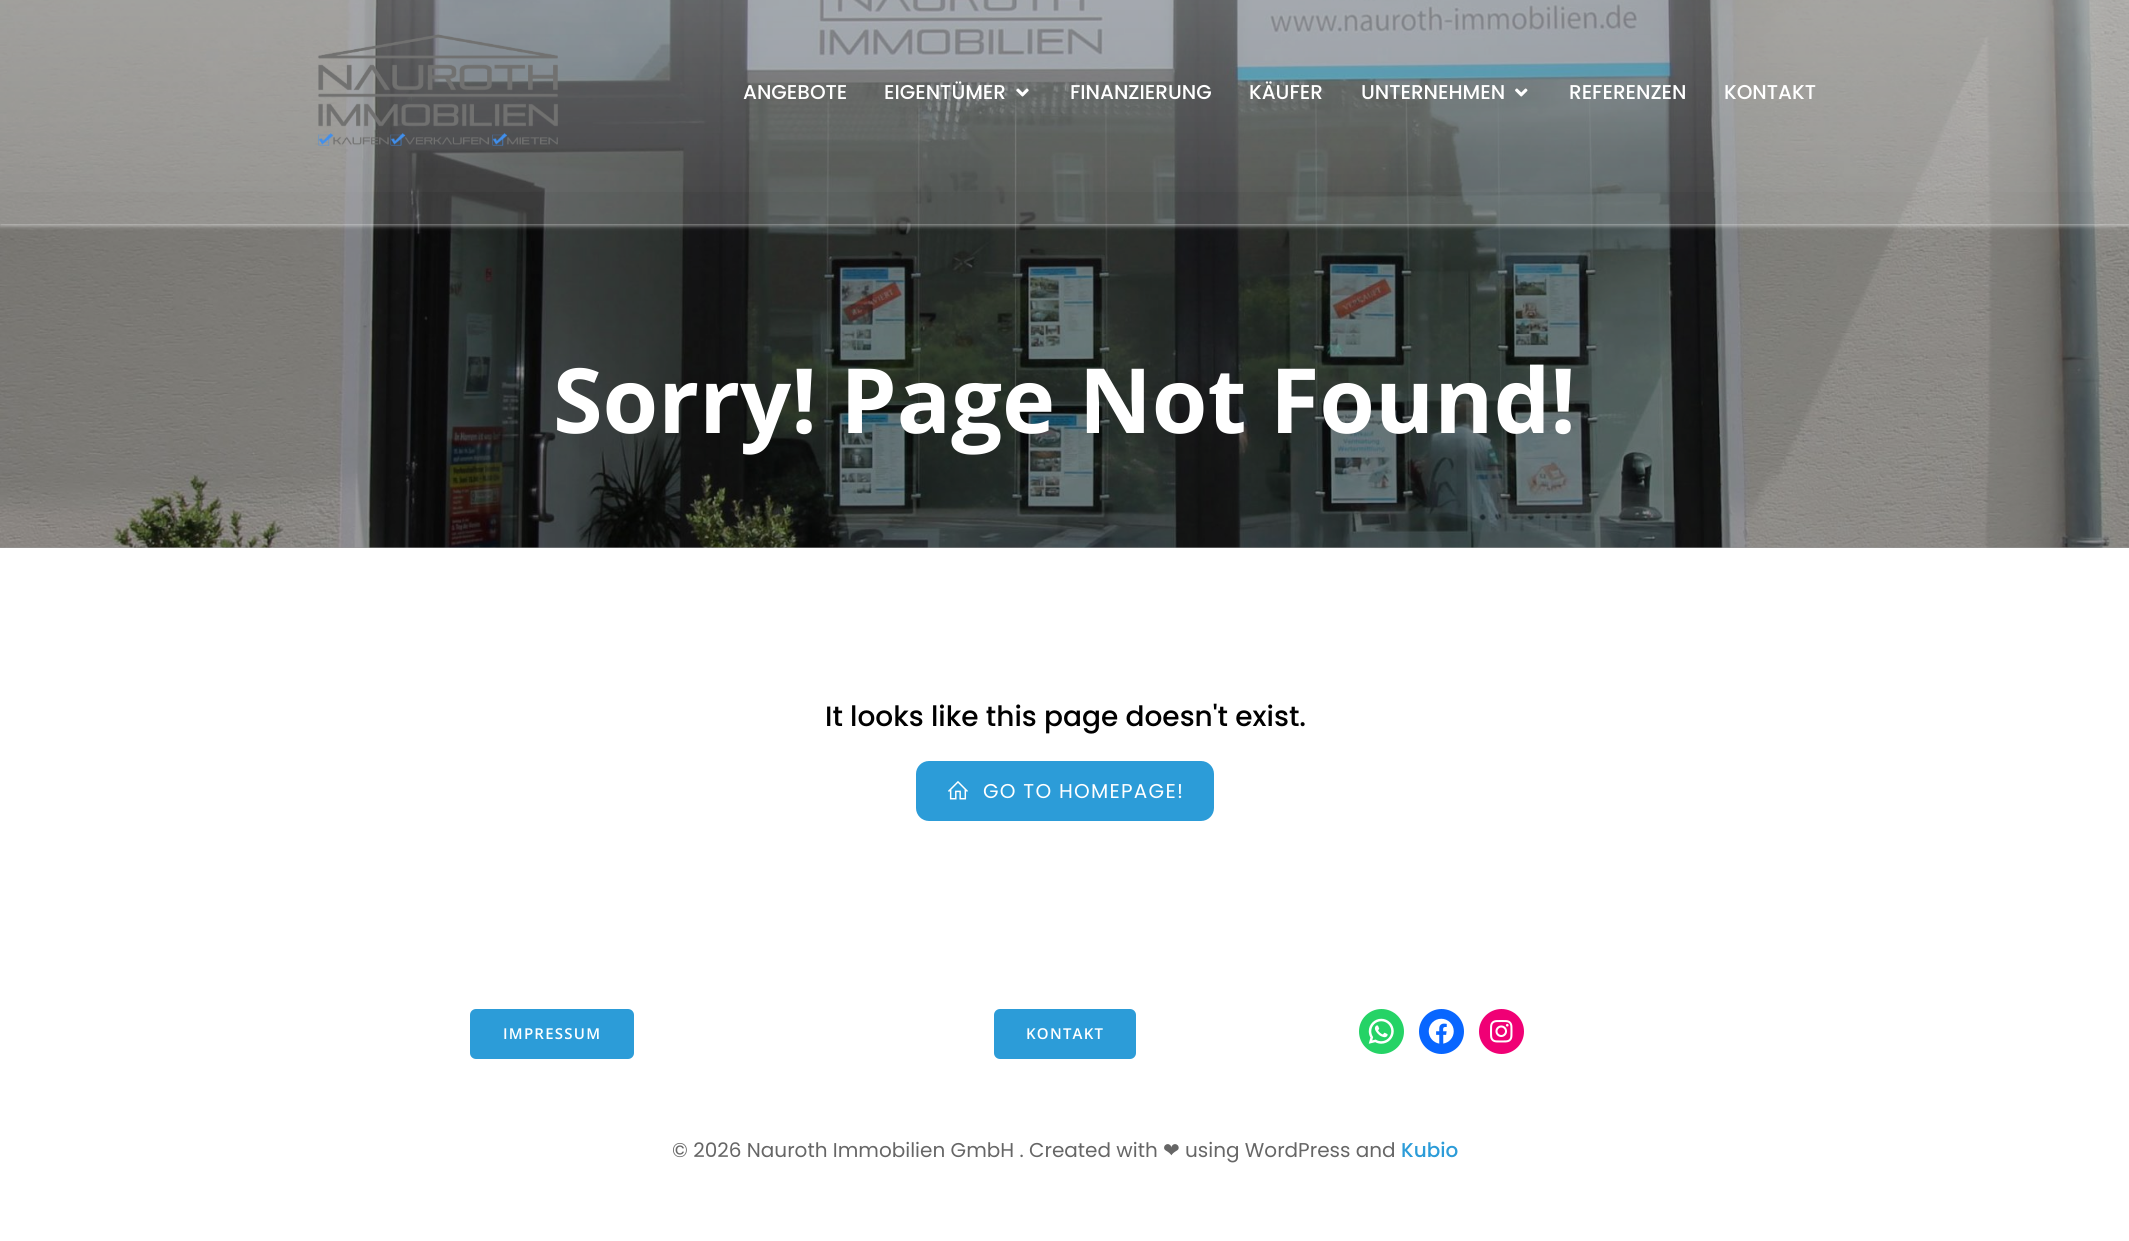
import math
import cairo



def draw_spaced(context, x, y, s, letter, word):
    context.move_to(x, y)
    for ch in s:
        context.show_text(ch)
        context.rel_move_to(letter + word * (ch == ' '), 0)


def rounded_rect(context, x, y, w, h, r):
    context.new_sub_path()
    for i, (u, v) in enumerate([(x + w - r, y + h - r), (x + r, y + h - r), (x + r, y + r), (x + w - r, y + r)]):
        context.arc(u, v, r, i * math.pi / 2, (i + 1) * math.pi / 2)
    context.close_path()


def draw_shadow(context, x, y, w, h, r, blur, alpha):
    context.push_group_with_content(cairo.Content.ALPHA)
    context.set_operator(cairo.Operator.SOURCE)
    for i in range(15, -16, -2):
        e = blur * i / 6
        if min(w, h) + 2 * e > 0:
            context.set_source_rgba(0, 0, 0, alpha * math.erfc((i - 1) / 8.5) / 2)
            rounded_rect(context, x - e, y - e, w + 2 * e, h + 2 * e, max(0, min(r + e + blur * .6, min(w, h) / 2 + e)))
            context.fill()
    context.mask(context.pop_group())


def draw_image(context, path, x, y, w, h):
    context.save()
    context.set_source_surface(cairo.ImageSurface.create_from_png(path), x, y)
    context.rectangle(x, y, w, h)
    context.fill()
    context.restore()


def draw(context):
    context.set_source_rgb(1, 1, 1)
    context.paint()
    context.set_source_rgb(153 / 255, 153 / 255, 153 / 255)
    context.rectangle(0, 547, 2129, 1)
    context.fill()
    draw_image(context, "images/4.png", 0, 0, 2129, 548)
    context.save()
    context.set_fill_rule(cairo.FillRule.EVEN_ODD)
    context.new_path()
    context.move_to(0, 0)
    context.line_to(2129, 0)
    context.line_to(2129, 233)
    context.line_to(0, 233)
    context.close_path()
    context.move_to(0, 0)
    context.line_to(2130, 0)
    context.line_to(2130, 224)
    context.line_to(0, 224)
    context.close_path()
    context.clip()
    context.set_source_rgb(1, 1, 1)
    draw_shadow(context, 0, 0, 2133, 226, 0, 2, 0.5)
    context.restore()
    context.set_source_rgba(1, 1, 1, 0.2)
    context.rectangle(0, 0, 2129, 224)
    context.fill()
    gradient = cairo.LinearGradient(1065, 0, 1065, 224)
    gradient.add_color_stop_rgba(0, 1, 1, 1, 0.15)
    gradient.add_color_stop_rgba(1, 1, 1, 1, 0)
    context.set_source(gradient)
    context.rectangle(0, 0, 2129, 192)
    context.fill()
    draw_image(context, "images/1.png", 318, 34, 240, 112)
    draw_image(context, "images/2.png", 1016, 88, 13, 9)
    draw_image(context, "images/3.png", 1515, 88, 13, 9)
    context.set_source_rgb(44 / 255, 156 / 255, 216 / 255)
    rounded_rect(context, 916, 761, 298, 60, 13)
    context.fill()
    draw_image(context, "images/5.png", 948, 781, 20, 19)
    rounded_rect(context, 471.5, 1010.5, 161, 47, 4.5)
    context.fill_preserve()
    context.set_line_width(3)
    context.stroke()
    rounded_rect(context, 995.5, 1010.5, 139, 47, 4.5)
    context.fill_preserve()
    context.stroke()
    context.set_source_rgb(37 / 255, 211 / 255, 102 / 255)
    context.arc(1381.5, 1031.5, 22.5, 0, 2 * math.pi)
    context.fill()
    draw_image(context, "images/6.png", 1368, 1018, 26, 26)
    context.set_source_rgb(8 / 255, 102 / 255, 1)
    context.arc(1441.5, 1031.5, 22.5, 0, 2 * math.pi)
    context.fill()
    draw_image(context, "images/7.png", 1428, 1018, 26, 26)
    context.set_source_rgb(240 / 255, 0, 117 / 255)
    context.arc(1501.5, 1031.5, 22.5, 0, 2 * math.pi)
    context.fill()
    draw_image(context, "images/8.png", 1490, 1020, 23, 23)
    context.select_font_face("Poppins Medium")
    context.set_font_size(20)
    context.set_source_rgb(1, 1, 1)
    context.move_to(743, 99)
    context.show_text("ANGEBOTE")
    context.move_to(884, 99)
    context.show_text("EIGENTÜMER")
    context.move_to(1070, 99)
    context.show_text("FINANZIERUNG")
    context.move_to(1249, 99)
    context.show_text("KÄUFER")
    context.move_to(1361, 99)
    context.show_text("UNTERNEHMEN")
    context.move_to(1569, 99)
    context.show_text("REFERENZEN")
    context.move_to(1724, 99)
    context.show_text("KONTAKT")
    context.select_font_face("Open Sans", cairo.FontSlant.NORMAL, cairo.FontWeight.BOLD)
    context.set_font_size(90)
    context.move_to(553, 433)
    context.show_text("Sorry! Page Not Found!")
    context.select_font_face("Poppins Medium")
    context.set_font_size(28)
    context.set_source_rgb(0, 0, 0)
    context.move_to(825, 726)
    context.show_text("It looks like this page doesn't exist.")
    context.select_font_face("Poppins")
    context.set_font_size(20)
    context.set_source_rgb(1, 1, 1)
    draw_spaced(context, 983, 798, "GO TO HOMEPAGE!", 1.25, 0)
    context.select_font_face("Open Sans SemiBold")
    context.set_font_size(15)
    draw_spaced(context, 503, 1039, "IMPRESSUM", 1.25, 0)
    draw_spaced(context, 1026, 1039, "KONTAKT", 1.25, 0)
    context.select_font_face("Poppins")
    context.set_font_size(20)
    context.set_source_rgb(102 / 255, 102 / 255, 102 / 255)
    context.move_to(672, 1157)
    context.show_text("© 2026 Nauroth Immobilien GmbH . Created with")
    context.select_font_face("DejaVu Sans")
    context.move_to(1163, 1157)
    context.show_text("❤")
    context.select_font_face("Poppins")
    context.move_to(1185, 1157)
    context.show_text("using WordPress and")
    context.select_font_face("Poppins Medium")
    context.set_source_rgb(44 / 255, 156 / 255, 216 / 255)
    context.move_to(1401, 1157)
    context.show_text("Kubio")


surface = cairo.ImageSurface(cairo.Format.RGB24, 2129, 1241)
context = cairo.Context(surface)
options = cairo.FontOptions()
options.set_hint_metrics(cairo.HintMetrics.OFF)
options.set_hint_style(cairo.HintStyle.NONE)
context.set_font_options(options)
context.set_miter_limit(4)
draw(context)
surface.write_to_png("out.png")
